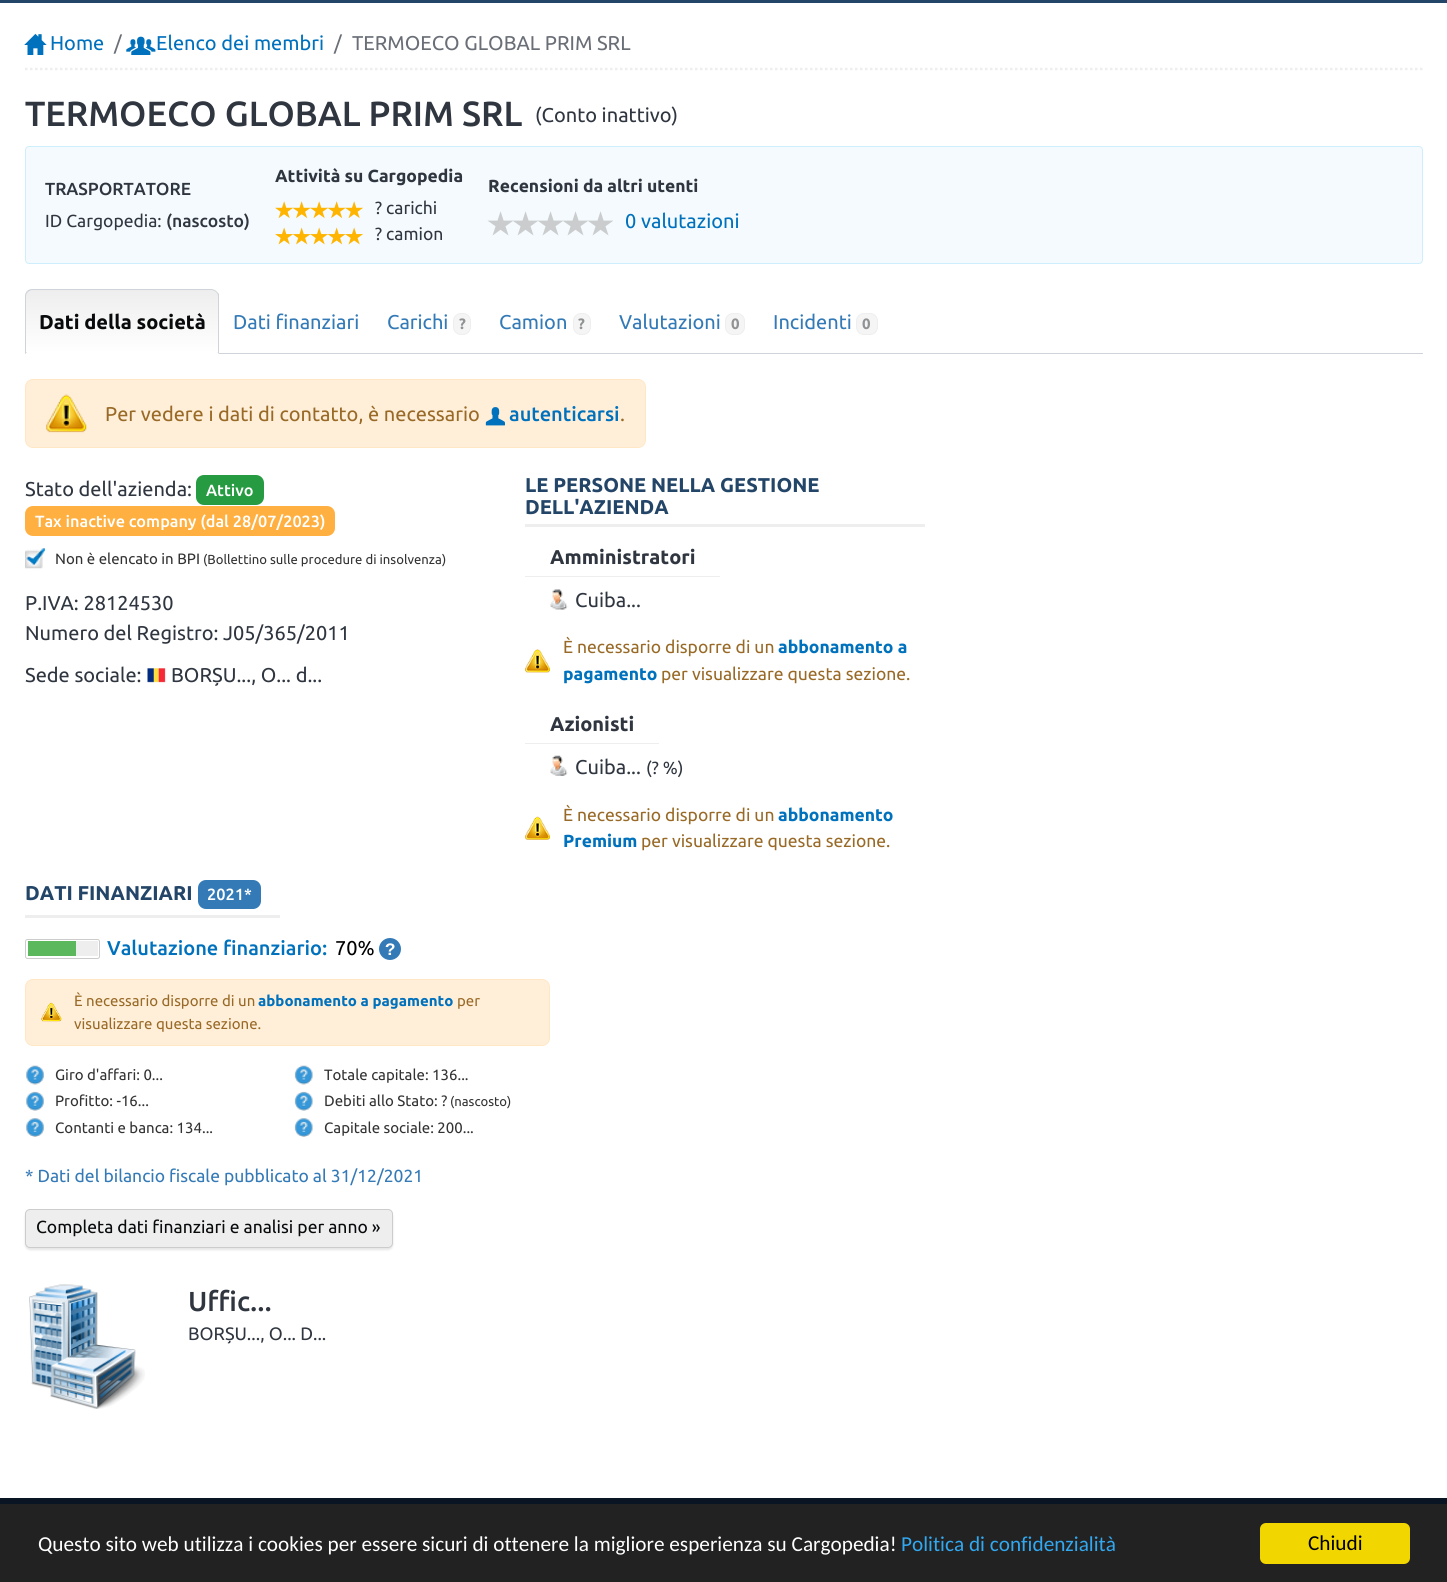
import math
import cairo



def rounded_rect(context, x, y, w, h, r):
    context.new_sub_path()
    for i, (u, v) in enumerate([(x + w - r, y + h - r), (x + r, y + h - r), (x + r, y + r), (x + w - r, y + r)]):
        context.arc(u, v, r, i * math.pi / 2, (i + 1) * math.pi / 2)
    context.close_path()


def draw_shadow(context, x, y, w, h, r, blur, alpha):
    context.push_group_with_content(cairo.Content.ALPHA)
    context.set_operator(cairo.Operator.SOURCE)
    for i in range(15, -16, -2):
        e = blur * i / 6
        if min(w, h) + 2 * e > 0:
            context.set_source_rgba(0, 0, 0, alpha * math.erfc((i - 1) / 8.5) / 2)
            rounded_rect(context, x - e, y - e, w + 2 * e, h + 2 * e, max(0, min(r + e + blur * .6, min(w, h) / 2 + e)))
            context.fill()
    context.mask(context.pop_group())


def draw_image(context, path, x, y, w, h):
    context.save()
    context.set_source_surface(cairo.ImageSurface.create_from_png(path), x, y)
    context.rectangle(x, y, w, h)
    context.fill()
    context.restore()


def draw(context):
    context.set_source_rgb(1, 1, 1)
    context.paint()
    context.set_source_rgb(35 / 255, 69 / 255, 103 / 255)
    context.rectangle(0, 0, 1447, 3)
    context.fill()
    context.new_path()
    context.move_to(25, 69)
    context.line_to(1422.5, 69)
    context.set_source_rgb(238 / 255, 238 / 255, 238 / 255)
    context.set_line_width(2.5)
    context.set_dash([2.5, 2.5])
    context.stroke()
    draw_image(context, "images/1.png", 24, 33, 23, 22)
    draw_image(context, "images/2.png", 126, 36, 30, 19)
    context.set_source_rgb(244 / 255, 250 / 255, 253 / 255)
    rounded_rect(context, 25.5, 146.5, 1397, 117, 3.5)
    context.fill_preserve()
    context.set_source_rgb(207 / 255, 238 / 255, 253 / 255)
    context.set_line_width(1)
    context.set_dash([])
    context.stroke()
    draw_image(context, "images/3.png", 275, 201, 18, 18)
    draw_image(context, "images/4.png", 292, 201, 19, 18)
    draw_image(context, "images/5.png", 310, 201, 18, 18)
    draw_image(context, "images/4.png", 327, 201, 19, 18)
    draw_image(context, "images/5.png", 345, 201, 18, 18)
    draw_image(context, "images/6.png", 275, 227, 18, 18)
    draw_image(context, "images/7.png", 292, 227, 19, 18)
    draw_image(context, "images/8.png", 310, 227, 18, 18)
    draw_image(context, "images/7.png", 327, 227, 19, 18)
    draw_image(context, "images/8.png", 345, 227, 18, 18)
    draw_image(context, "images/9.png", 487, 211, 26, 25)
    draw_image(context, "images/10.png", 513, 211, 25, 25)
    draw_image(context, "images/10.png", 538, 211, 25, 25)
    draw_image(context, "images/10.png", 563, 211, 25, 25)
    draw_image(context, "images/10.png", 588, 211, 25, 25)
    context.set_source_rgb(206 / 255, 212 / 255, 218 / 255)
    context.rectangle(25, 353, 1398, 1)
    context.fill()
    context.save()
    context.new_path()
    context.move_to(33, 289)
    context.line_to(211, 289)
    context.curve_to(215.5, 289, 219, 292.5, 219, 297)
    context.line_to(219, 354)
    context.line_to(25, 354)
    context.line_to(25, 297)
    context.curve_to(25, 292.5, 28.5, 289, 33, 289)
    context.close_path()
    context.clip()
    gradient = cairo.LinearGradient(122, 290, 122, 353)
    gradient.add_color_stop_rgba(0, 238 / 255, 238 / 255, 238 / 255, 1)
    gradient.add_color_stop_rgba(1, 1, 1, 1, 1)
    context.set_source(gradient)
    context.rectangle(25, 290, 194, 63)
    context.fill()
    context.restore()
    context.new_path()
    context.move_to(32, 289)
    context.curve_to(30, 289, 28, 290, 27, 291)
    context.line_to(28, 292)
    context.curve_to(29, 291, 31, 290, 32, 290)
    context.line_to(211, 290)
    context.curve_to(213, 290, 215, 291, 216, 292)
    context.line_to(216, 291)
    context.curve_to(215, 290, 213, 289, 211, 289)
    context.close_path()
    context.fill()
    context.new_path()
    context.move_to(216, 291)
    context.line_to(219, 294)
    context.line_to(219, 354)
    context.line_to(217, 352)
    context.line_to(218, 352)
    context.line_to(218, 296)
    context.curve_to(218, 294, 217, 293, 216, 292)
    context.close_path()
    context.fill()
    context.set_source_rgb(1, 1, 1)
    context.new_path()
    context.move_to(219, 354)
    context.line_to(217, 352)
    context.line_to(27, 352)
    context.line_to(25, 354)
    context.close_path()
    context.fill()
    context.set_source_rgb(206 / 255, 212 / 255, 218 / 255)
    context.new_path()
    context.move_to(25, 354)
    context.line_to(27, 352)
    context.line_to(26, 352)
    context.line_to(26, 296)
    context.curve_to(26, 294, 27, 293, 28, 292)
    context.line_to(27, 291)
    context.curve_to(26, 292, 25, 294, 25, 296)
    context.close_path()
    context.fill()
    context.set_source_rgb(245 / 255, 245 / 255, 245 / 255)
    rounded_rect(context, 453.5, 313.5, 17, 21, 7.5)
    context.fill_preserve()
    context.set_source_rgb(238 / 255, 238 / 255, 238 / 255)
    context.stroke()
    context.set_source_rgb(245 / 255, 245 / 255, 245 / 255)
    rounded_rect(context, 573.5, 313.5, 17, 21, 7.5)
    context.fill_preserve()
    context.set_source_rgb(238 / 255, 238 / 255, 238 / 255)
    context.stroke()
    context.set_source_rgb(245 / 255, 245 / 255, 245 / 255)
    rounded_rect(context, 725.5, 313.5, 19, 21, 7.5)
    context.fill_preserve()
    context.set_source_rgb(238 / 255, 238 / 255, 238 / 255)
    context.stroke()
    context.set_source_rgb(245 / 255, 245 / 255, 245 / 255)
    rounded_rect(context, 856.5, 313.5, 21, 21, 7.5)
    context.fill_preserve()
    context.set_source_rgb(238 / 255, 238 / 255, 238 / 255)
    context.stroke()
    context.set_source_rgb(1, 239 / 255, 217 / 255)
    rounded_rect(context, 25.5, 379.5, 620, 68, 7.5)
    context.fill_preserve()
    context.set_source_rgb(1, 231 / 255, 198 / 255)
    context.stroke()
    draw_image(context, "images/11.png", 46, 394, 41, 39)
    draw_image(context, "images/12.png", 485, 407, 20, 19)
    context.set_source_rgb(38 / 255, 155 / 255, 66 / 255)
    rounded_rect(context, 196, 475, 68, 30, 8)
    context.fill()
    context.set_source_rgb(1, 176 / 255, 65 / 255)
    rounded_rect(context, 25, 506, 310, 30, 8)
    context.fill()
    draw_image(context, "images/13.png", 25, 548, 20, 21)
    draw_image(context, "images/14.png", 147, 668, 19, 15)
    context.set_source_rgb(238 / 255, 238 / 255, 238 / 255)
    context.rectangle(525, 524, 400, 3)
    context.fill()
    context.rectangle(525, 576, 195, 1)
    context.fill()
    draw_image(context, "images/15.png", 550, 589, 19, 21)
    draw_image(context, "images/16.png", 525, 649, 25, 24)
    context.rectangle(525, 743, 134, 1)
    context.fill()
    draw_image(context, "images/17.png", 550, 755, 18, 21)
    draw_image(context, "images/18.png", 525, 816, 25, 24)
    context.rectangle(25, 915, 255, 3)
    context.fill()
    context.set_source_rgb(51 / 255, 122 / 255, 183 / 255)
    rounded_rect(context, 198, 880, 63, 29, 8)
    context.fill()
    rounded_rect(context, 25.5, 939.5, 74, 19, 2)
    context.set_source_rgb(204 / 255, 204 / 255, 204 / 255)
    context.stroke()
    context.set_source_rgb(92 / 255, 184 / 255, 92 / 255)
    context.rectangle(28, 941, 48, 15)
    context.fill()
    context.set_source_rgb(238 / 255, 238 / 255, 238 / 255)
    context.rectangle(76, 941, 22, 15)
    context.fill()
    context.set_source_rgb(51 / 255, 122 / 255, 183 / 255)
    context.arc(390, 949, 11, 0, 2 * math.pi)
    context.fill()
    context.set_source_rgb(1, 239 / 255, 217 / 255)
    rounded_rect(context, 25.5, 979.5, 524, 66, 7.5)
    context.fill_preserve()
    context.set_source_rgb(1, 231 / 255, 198 / 255)
    context.stroke()
    draw_image(context, "images/19.png", 41, 1002, 21, 20)
    draw_image(context, "images/20.png", 26, 1065, 18, 20)
    draw_image(context, "images/21.png", 294, 1065, 19, 20)
    draw_image(context, "images/22.png", 26, 1091, 18, 20)
    draw_image(context, "images/23.png", 294, 1091, 19, 20)
    draw_image(context, "images/24.png", 26, 1118, 18, 19)
    draw_image(context, "images/25.png", 294, 1118, 19, 19)
    context.set_source_rgb(0, 0, 0)
    draw_shadow(context, 25, 1211, 368, 39, 5, 1, 0.1)
    context.set_source_rgb(238 / 255, 238 / 255, 238 / 255)
    rounded_rect(context, 25.5, 1209.5, 367, 38, 4.5)
    context.fill_preserve()
    context.set_source_rgb(204 / 255, 204 / 255, 204 / 255)
    context.stroke()
    draw_image(context, "images/26.png", 29, 1284, 116, 125)
    context.set_source_rgb(9 / 255, 21 / 255, 35 / 255)
    context.rectangle(0, 1498, 1447, 6)
    context.fill()
    context.set_source_rgb(34 / 255, 34 / 255, 34 / 255)
    context.rectangle(0, 1504, 1447, 78)
    context.fill()
    context.set_source_rgb(241 / 255, 214 / 255, 0)
    rounded_rect(context, 1260, 1523, 150, 41, 6)
    context.fill()
    context.select_font_face("Ubuntu")
    context.set_font_size(20)
    context.set_source_rgb(0, 113 / 255, 188 / 255)
    context.move_to(50, 50)
    context.show_text("Home")
    context.set_source_rgb(106 / 255, 110 / 255, 118 / 255)
    context.move_to(114, 50)
    context.show_text("/")
    context.set_source_rgb(0, 113 / 255, 188 / 255)
    context.move_to(156, 50)
    context.show_text("Elenco dei membri")
    context.set_source_rgb(106 / 255, 110 / 255, 118 / 255)
    context.move_to(334, 50)
    context.show_text("/")
    context.move_to(352, 50)
    context.show_text("TERMOECO GLOBAL PRIM SRL")
    context.select_font_face("Ubuntu Medium")
    context.set_font_size(35)
    context.set_source_rgb(48 / 255, 54 / 255, 64 / 255)
    context.move_to(25, 126)
    context.show_text("TERMOECO GLOBAL PRIM SRL")
    context.select_font_face("Ubuntu")
    context.set_font_size(20)
    context.move_to(535, 122)
    context.show_text("(Conto inattivo)")
    context.select_font_face("Ubuntu Medium")
    context.set_font_size(17.5)
    context.move_to(45, 195)
    context.show_text("TRASPORTATORE")
    context.select_font_face("Ubuntu")
    context.move_to(45, 227)
    context.show_text("ID Cargopedia:")
    context.select_font_face("Ubuntu Medium")
    context.move_to(166, 227)
    context.show_text("(nascosto)")
    context.select_font_face("Ubuntu", cairo.FontSlant.NORMAL, cairo.FontWeight.BOLD)
    context.move_to(275, 182)
    context.show_text("Attività su Cargopedia")
    context.select_font_face("Ubuntu")
    context.move_to(375, 214)
    context.show_text("? carichi")
    context.move_to(375, 240)
    context.show_text("? camion")
    context.select_font_face("Ubuntu", cairo.FontSlant.NORMAL, cairo.FontWeight.BOLD)
    context.move_to(488, 192)
    context.show_text("Recensioni da altri utenti")
    context.select_font_face("Ubuntu")
    context.set_font_size(20)
    context.set_source_rgb(0, 113 / 255, 188 / 255)
    context.move_to(625, 228)
    context.show_text("0 valutazioni")
    context.select_font_face("Ubuntu", cairo.FontSlant.NORMAL, cairo.FontWeight.BOLD)
    context.set_source_rgb(8 / 255, 10 / 255, 12 / 255)
    context.move_to(39, 329)
    context.show_text("Dati della società")
    context.select_font_face("Ubuntu")
    context.set_source_rgb(51 / 255, 122 / 255, 183 / 255)
    context.move_to(233, 329)
    context.show_text("Dati finanziari")
    context.move_to(387, 329)
    context.show_text("Carichi")
    context.select_font_face("Ubuntu", cairo.FontSlant.NORMAL, cairo.FontWeight.BOLD)
    context.set_font_size(15)
    context.set_source_rgb(144 / 255, 146 / 255, 148 / 255)
    context.move_to(459, 329)
    context.show_text("?")
    context.select_font_face("Ubuntu")
    context.set_font_size(20)
    context.set_source_rgb(51 / 255, 122 / 255, 183 / 255)
    context.move_to(499, 329)
    context.show_text("Camion")
    context.select_font_face("Ubuntu", cairo.FontSlant.NORMAL, cairo.FontWeight.BOLD)
    context.set_font_size(15)
    context.set_source_rgb(144 / 255, 146 / 255, 148 / 255)
    context.move_to(578, 329)
    context.show_text("?")
    context.select_font_face("Ubuntu")
    context.set_font_size(20)
    context.set_source_rgb(51 / 255, 122 / 255, 183 / 255)
    context.move_to(619, 329)
    context.show_text("Valutazioni")
    context.select_font_face("Ubuntu", cairo.FontSlant.NORMAL, cairo.FontWeight.BOLD)
    context.set_font_size(15)
    context.set_source_rgb(144 / 255, 146 / 255, 148 / 255)
    context.move_to(731, 329)
    context.show_text("0")
    context.select_font_face("Ubuntu")
    context.set_font_size(20)
    context.set_source_rgb(51 / 255, 122 / 255, 183 / 255)
    context.move_to(773, 329)
    context.show_text("Incidenti")
    context.select_font_face("Ubuntu", cairo.FontSlant.NORMAL, cairo.FontWeight.BOLD)
    context.set_font_size(15)
    context.set_source_rgb(144 / 255, 146 / 255, 148 / 255)
    context.move_to(862, 329)
    context.show_text("0")
    context.select_font_face("Ubuntu")
    context.set_font_size(20)
    context.set_source_rgb(153 / 255, 106 / 255, 39 / 255)
    context.move_to(105, 421)
    context.show_text("Per vedere i dati di contatto, è necessario")
    context.select_font_face("Ubuntu Medium")
    context.set_source_rgb(0, 113 / 255, 188 / 255)
    context.move_to(509, 421)
    context.show_text("autenticarsi")
    context.select_font_face("Ubuntu")
    context.set_source_rgb(153 / 255, 106 / 255, 39 / 255)
    context.move_to(620, 421)
    context.show_text(".")
    context.set_source_rgb(48 / 255, 54 / 255, 64 / 255)
    context.move_to(25, 496)
    context.show_text("Stato dell'azienda:")
    context.select_font_face("Ubuntu Medium")
    context.set_font_size(16.25)
    context.set_source_rgb(1, 1, 1)
    context.move_to(206, 496)
    context.show_text("Attivo")
    context.move_to(35, 527)
    context.show_text("Tax inactive company (dal 28/07/2023)")
    context.select_font_face("Ubuntu")
    context.set_font_size(15)
    context.set_source_rgb(51 / 255, 51 / 255, 51 / 255)
    context.move_to(55, 564)
    context.show_text("Non è elencato in BPI")
    context.set_font_size(13.1)
    context.move_to(203, 564)
    context.show_text("(Bollettino sulle procedure di insolvenza)")
    context.set_font_size(20)
    context.set_source_rgb(48 / 255, 54 / 255, 64 / 255)
    context.move_to(25, 610)
    context.show_text("P.IVA: 28124530")
    context.move_to(25, 640)
    context.show_text("Numero del Registro: J05/365/2011")
    context.move_to(25, 682)
    context.show_text("Sede sociale:")
    context.move_to(171, 682)
    context.show_text("BORȘU..., O... d...")
    context.select_font_face("Ubuntu", cairo.FontSlant.NORMAL, cairo.FontWeight.BOLD)
    context.set_source_rgb(35 / 255, 69 / 255, 103 / 255)
    context.move_to(525, 492)
    context.show_text("LE PERSONE NELLA GESTIONE")
    context.move_to(525, 514)
    context.show_text("DELL'AZIENDA")
    context.set_source_rgb(48 / 255, 54 / 255, 64 / 255)
    context.move_to(550, 564)
    context.show_text("Amministratori")
    context.select_font_face("Ubuntu")
    context.move_to(575, 607)
    context.show_text("Cuiba...")
    context.set_font_size(17.5)
    context.set_source_rgb(153 / 255, 106 / 255, 39 / 255)
    context.move_to(563, 653)
    context.show_text("È necessario disporre di un")
    context.select_font_face("Ubuntu", cairo.FontSlant.NORMAL, cairo.FontWeight.BOLD)
    context.set_source_rgb(0, 113 / 255, 188 / 255)
    context.move_to(778, 653)
    context.show_text("abbonamento a")
    context.move_to(563, 680)
    context.show_text("pagamento")
    context.select_font_face("Ubuntu")
    context.set_source_rgb(153 / 255, 106 / 255, 39 / 255)
    context.move_to(661, 680)
    context.show_text("per visualizzare questa sezione.")
    context.select_font_face("Ubuntu", cairo.FontSlant.NORMAL, cairo.FontWeight.BOLD)
    context.set_font_size(20)
    context.set_source_rgb(48 / 255, 54 / 255, 64 / 255)
    context.move_to(550, 731)
    context.show_text("Azionisti")
    context.select_font_face("Ubuntu")
    context.move_to(575, 774)
    context.show_text("Cuiba...")
    context.set_font_size(17.5)
    context.move_to(646, 774)
    context.show_text("(? %)")
    context.set_source_rgb(153 / 255, 106 / 255, 39 / 255)
    context.move_to(563, 821)
    context.show_text("È necessario disporre di un")
    context.select_font_face("Ubuntu", cairo.FontSlant.NORMAL, cairo.FontWeight.BOLD)
    context.set_source_rgb(0, 113 / 255, 188 / 255)
    context.move_to(778, 821)
    context.show_text("abbonamento")
    context.move_to(563, 847)
    context.show_text("Premium")
    context.select_font_face("Ubuntu")
    context.set_source_rgb(153 / 255, 106 / 255, 39 / 255)
    context.move_to(641, 847)
    context.show_text("per visualizzare questa sezione.")
    context.select_font_face("Ubuntu", cairo.FontSlant.NORMAL, cairo.FontWeight.BOLD)
    context.set_font_size(20)
    context.set_source_rgb(35 / 255, 69 / 255, 103 / 255)
    context.move_to(25, 900)
    context.show_text("DATI FINANZIARI")
    context.select_font_face("Ubuntu Medium")
    context.set_font_size(16.25)
    context.set_source_rgb(1, 1, 1)
    context.move_to(207, 900)
    context.show_text("2021*")
    context.set_font_size(20)
    context.set_source_rgb(0, 113 / 255, 188 / 255)
    context.move_to(107, 955)
    context.show_text("Valutazione finanziario:")
    context.select_font_face("Ubuntu")
    context.set_source_rgb(0, 0, 0)
    context.move_to(335, 955)
    context.show_text("70%")
    context.select_font_face("Liberation Mono", cairo.FontSlant.NORMAL, cairo.FontWeight.BOLD)
    context.set_font_size(17.5)
    context.set_source_rgb(1, 1, 1)
    context.move_to(385, 955)
    context.show_text("?")
    context.select_font_face("Ubuntu")
    context.set_font_size(15)
    context.set_source_rgb(153 / 255, 106 / 255, 39 / 255)
    context.move_to(74, 1006)
    context.show_text("È necessario disporre di un")
    context.select_font_face("Ubuntu", cairo.FontSlant.NORMAL, cairo.FontWeight.BOLD)
    context.set_source_rgb(0, 113 / 255, 188 / 255)
    context.move_to(258, 1006)
    context.show_text("abbonamento a pagamento")
    context.select_font_face("Ubuntu")
    context.set_source_rgb(153 / 255, 106 / 255, 39 / 255)
    context.move_to(457, 1006)
    context.show_text("per")
    context.move_to(74, 1029)
    context.show_text("visualizzare questa sezione.")
    context.set_source_rgb(51 / 255, 51 / 255, 51 / 255)
    context.move_to(55, 1080)
    context.show_text("Giro d'affari: 0...")
    context.move_to(324, 1080)
    context.show_text("Totale capitale: 136...")
    context.move_to(55, 1106)
    context.show_text("Profitto: -16...")
    context.move_to(324, 1106)
    context.show_text("Debiti allo Stato: ?")
    context.set_font_size(13.1)
    context.move_to(450, 1106)
    context.show_text("(nascosto)")
    context.set_font_size(15)
    context.move_to(55, 1133)
    context.show_text("Contanti e banca: 134...")
    context.move_to(324, 1133)
    context.show_text("Capitale sociale: 200...")
    context.set_font_size(17.5)
    context.set_source_rgb(51 / 255, 122 / 255, 183 / 255)
    context.move_to(25, 1182)
    context.show_text("* Dati del bilancio fiscale pubblicato al 31/12/2021")
    context.set_source_rgb(8 / 255, 10 / 255, 12 / 255)
    context.move_to(36, 1233)
    context.show_text("Completa dati finanziari e analisi per anno »")
    context.select_font_face("Ubuntu Medium")
    context.set_font_size(27.5)
    context.set_source_rgb(48 / 255, 54 / 255, 64 / 255)
    context.move_to(188, 1311)
    context.show_text("Uffic...")
    context.select_font_face("Ubuntu")
    context.set_font_size(18)
    context.move_to(188, 1340)
    context.show_text("BORȘU..., O... D...")
    context.select_font_face("Carlito")
    context.set_font_size(21.25)
    context.set_source_rgb(1, 1, 1)
    context.move_to(38, 1551)
    context.show_text("Questo sito web utilizza i cookies per essere sicuri di ottenere la migliore esperienza su Cargopedia!")
    context.set_source_rgb(49 / 255, 168 / 255, 240 / 255)
    context.move_to(901, 1551)
    context.show_text("Politica di confidenzialità")
    context.set_source_rgb(0, 0, 0)
    context.move_to(1308, 1550)
    context.show_text("Chiudi")


surface = cairo.ImageSurface(cairo.Format.RGB24, 1447, 1582)
context = cairo.Context(surface)
options = cairo.FontOptions()
options.set_hint_metrics(cairo.HintMetrics.OFF)
options.set_hint_style(cairo.HintStyle.NONE)
context.set_font_options(options)
context.set_miter_limit(4)
draw(context)
surface.write_to_png("out.png")
